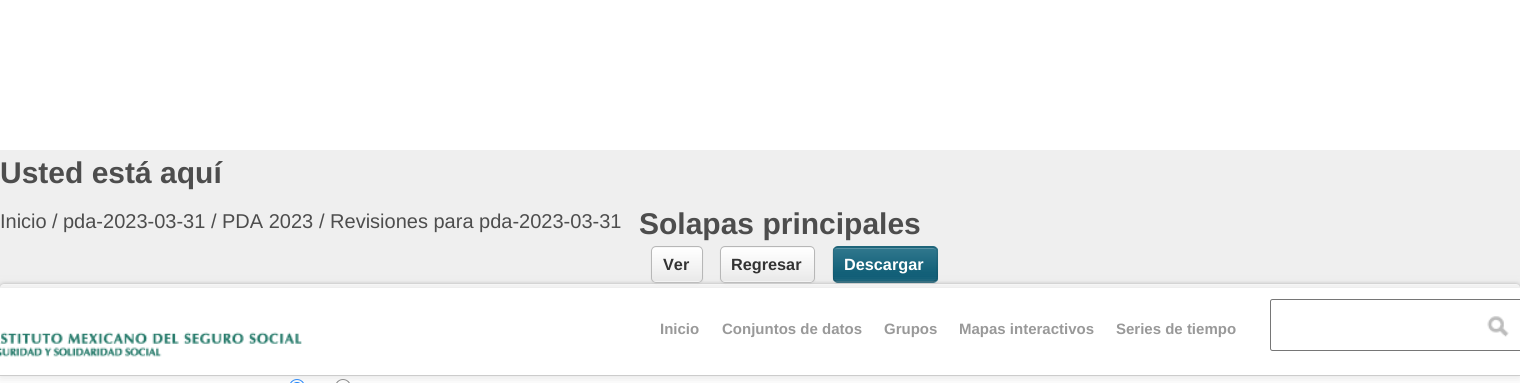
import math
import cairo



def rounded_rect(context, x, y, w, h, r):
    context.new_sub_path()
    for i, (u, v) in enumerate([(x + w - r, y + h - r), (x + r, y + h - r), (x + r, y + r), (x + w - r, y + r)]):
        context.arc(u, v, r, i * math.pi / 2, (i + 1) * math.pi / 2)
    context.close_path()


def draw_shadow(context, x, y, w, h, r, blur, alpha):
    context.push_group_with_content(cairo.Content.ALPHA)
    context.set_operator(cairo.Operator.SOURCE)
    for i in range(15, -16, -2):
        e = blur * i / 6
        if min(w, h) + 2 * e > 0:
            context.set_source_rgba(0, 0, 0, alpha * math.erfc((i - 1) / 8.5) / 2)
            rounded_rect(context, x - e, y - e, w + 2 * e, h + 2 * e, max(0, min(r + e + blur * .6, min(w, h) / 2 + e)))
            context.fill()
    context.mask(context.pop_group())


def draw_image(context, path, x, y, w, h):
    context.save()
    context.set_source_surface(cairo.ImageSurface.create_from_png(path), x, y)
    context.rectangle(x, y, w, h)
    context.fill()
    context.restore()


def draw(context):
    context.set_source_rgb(1, 1, 1)
    context.paint()
    context.set_source_rgb(239 / 255, 239 / 255, 239 / 255)
    context.rectangle(0, 150, 1520, 138)
    context.fill()
    context.set_source_rgb(0, 0, 0)
    draw_shadow(context, 0, 284, 1520, 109, 4, 2, 0.3)
    context.set_source_rgb(1, 1, 1)
    rounded_rect(context, 0, 284, 1520, 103, 4)
    context.fill()
    context.set_source_rgb(0, 0, 0)
    draw_shadow(context, 651, 248, 52, 36, 5, 1, 0.05)
    context.set_source_rgb(247 / 255, 247 / 255, 247 / 255)
    rounded_rect(context, 651, 246, 52, 37, 5)
    context.fill()
    context.save()
    rounded_rect(context, 651, 246, 52, 37, 5)
    context.clip()
    gradient = cairo.LinearGradient(677, 248, 677, 281)
    gradient.add_color_stop_rgba(0, 1, 1, 1, 1)
    gradient.add_color_stop_rgba(1, 234 / 255, 234 / 255, 234 / 255, 1)
    context.set_source(gradient)
    context.rectangle(651, 248, 52, 33)
    context.fill()
    context.restore()
    rounded_rect(context, 651.5, 246.5, 51, 36, 4.5)
    context.set_source_rgb(183 / 255, 183 / 255, 183 / 255)
    context.set_line_width(1)
    context.stroke()
    context.set_source_rgb(0, 0, 0)
    draw_shadow(context, 720, 248, 95, 36, 5, 1, 0.05)
    context.set_source_rgb(247 / 255, 247 / 255, 247 / 255)
    rounded_rect(context, 720, 246, 95, 37, 5)
    context.fill()
    context.save()
    rounded_rect(context, 720, 246, 95, 37, 5)
    context.clip()
    gradient = cairo.LinearGradient(768, 248, 768, 281)
    gradient.add_color_stop_rgba(0, 1, 1, 1, 1)
    gradient.add_color_stop_rgba(1, 234 / 255, 234 / 255, 234 / 255, 1)
    context.set_source(gradient)
    context.rectangle(720, 248, 95, 33)
    context.fill()
    context.restore()
    rounded_rect(context, 720.5, 246.5, 94, 36, 4.5)
    context.set_source_rgb(183 / 255, 183 / 255, 183 / 255)
    context.stroke()
    context.set_source_rgb(0, 0, 0)
    draw_shadow(context, 833, 248, 105, 36, 5, 1, 0.05)
    context.set_source_rgb(32 / 255, 107 / 255, 130 / 255)
    rounded_rect(context, 833, 246, 105, 37, 5)
    context.fill()
    context.save()
    rounded_rect(context, 833, 246, 105, 37, 5)
    context.clip()
    gradient = cairo.LinearGradient(885, 248, 885, 281)
    gradient.add_color_stop_rgba(0, 48 / 255, 119 / 255, 141 / 255, 1)
    gradient.add_color_stop_rgba(1, 8 / 255, 88 / 255, 113 / 255, 1)
    context.set_source(gradient)
    context.rectangle(833, 248, 105, 33)
    context.fill()
    context.restore()
    context.set_source_rgb(89 / 255, 146 / 255, 164 / 255)
    context.new_path()
    context.move_to(838, 249)
    context.line_to(934, 249)
    context.line_to(936, 250)
    context.curve_to(935, 249, 934, 248, 932, 248)
    context.line_to(838, 248)
    context.curve_to(836, 248, 835, 249, 834, 250)
    context.curve_to(835, 249, 836, 249, 838, 249)
    context.close_path()
    context.fill()
    context.new_path()
    context.move_to(935.5, 280.5)
    context.line_to(933, 282)
    context.line_to(837, 282)
    context.line_to(834.5, 280.5)
    context.set_source_rgba(0, 0, 0, 0.25)
    context.set_line_width(1.2)
    context.stroke()
    context.new_path()
    context.move_to(834.5, 280.5)
    context.curve_to(832, 278, 833, 267.5, 833, 264.5)
    context.curve_to(833, 243.5, 830.5, 247, 853.5, 247)
    context.line_to(916.5, 247)
    context.curve_to(941.5, 247, 937, 244, 937, 269)
    context.curve_to(937, 272, 938.5, 278, 935.5, 280.5)
    context.set_source_rgba(0, 0, 0, 0.1)
    context.stroke()
    rounded_rect(context, 289.5, 379.5, 15, 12, 7.5)
    context.set_source_rgb(0, 117 / 255, 1)
    context.set_line_width(1)
    context.stroke()
    context.arc(297, 387, 5, 0, 2 * math.pi)
    context.fill()
    rounded_rect(context, 335.5, 379.5, 15, 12, 7.5)
    context.set_source_rgb(118 / 255, 118 / 255, 118 / 255)
    context.stroke()
    context.set_source_rgb(221 / 255, 221 / 255, 221 / 255)
    draw_shadow(context, 0, 288, 1520, 88, 0, 6, 1)
    context.set_source_rgb(1, 1, 1)
    context.rectangle(0, 288, 1520, 87)
    context.fill()
    context.set_source_rgb(204 / 255, 204 / 255, 204 / 255)
    context.rectangle(0, 375, 1520, 1)
    context.fill()
    rounded_rect(context, 1270.5, 299.5, 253, 51, 2)
    context.set_source_rgb(118 / 255, 118 / 255, 118 / 255)
    context.stroke()
    draw_image(context, "images/1.png", 1487, 316, 22, 21)
    draw_image(context, "images/2.png", 0, 332, 302, 25)
    context.select_font_face("Liberation Sans", cairo.FontSlant.NORMAL, cairo.FontWeight.BOLD)
    context.set_font_size(30)
    context.set_source_rgb(77 / 255, 77 / 255, 77 / 255)
    context.move_to(0, 183)
    context.show_text("Usted está aquí")
    context.select_font_face("Liberation Sans")
    context.set_font_size(20)
    context.move_to(0, 228)
    context.show_text("Inicio")
    context.move_to(52, 228)
    context.show_text("/")
    context.move_to(63, 228)
    context.show_text("pda-2023-03-31")
    context.move_to(211, 228)
    context.show_text("/")
    context.move_to(222, 228)
    context.show_text("PDA 2023")
    context.move_to(319, 228)
    context.show_text("/ Revisiones para pda-2023-03-31")
    context.select_font_face("Liberation Sans", cairo.FontSlant.NORMAL, cairo.FontWeight.BOLD)
    context.set_font_size(30)
    context.move_to(639, 234)
    context.show_text("Solapas principales")
    context.set_font_size(16.25)
    context.set_source_rgb(51 / 255, 51 / 255, 51 / 255)
    context.move_to(663, 270)
    context.show_text("Ver")
    context.move_to(731, 270)
    context.show_text("Regresar")
    context.set_source_rgb(1, 1, 1)
    context.move_to(844, 270)
    context.show_text("Descargar")
    context.set_font_size(15)
    context.set_source_rgb(153 / 255, 153 / 255, 153 / 255)
    context.move_to(660, 334)
    context.show_text("Inicio")
    context.move_to(722, 334)
    context.show_text("Conjuntos de datos")
    context.move_to(884, 334)
    context.show_text("Grupos")
    context.move_to(959, 334)
    context.show_text("Mapas interactivos")
    context.move_to(1116, 334)
    context.show_text("Series de tiempo")


surface = cairo.ImageSurface(cairo.Format.RGB24, 1520, 383)
context = cairo.Context(surface)
options = cairo.FontOptions()
options.set_hint_metrics(cairo.HintMetrics.OFF)
options.set_hint_style(cairo.HintStyle.NONE)
context.set_font_options(options)
context.set_miter_limit(4)
draw(context)
surface.write_to_png("out.png")
